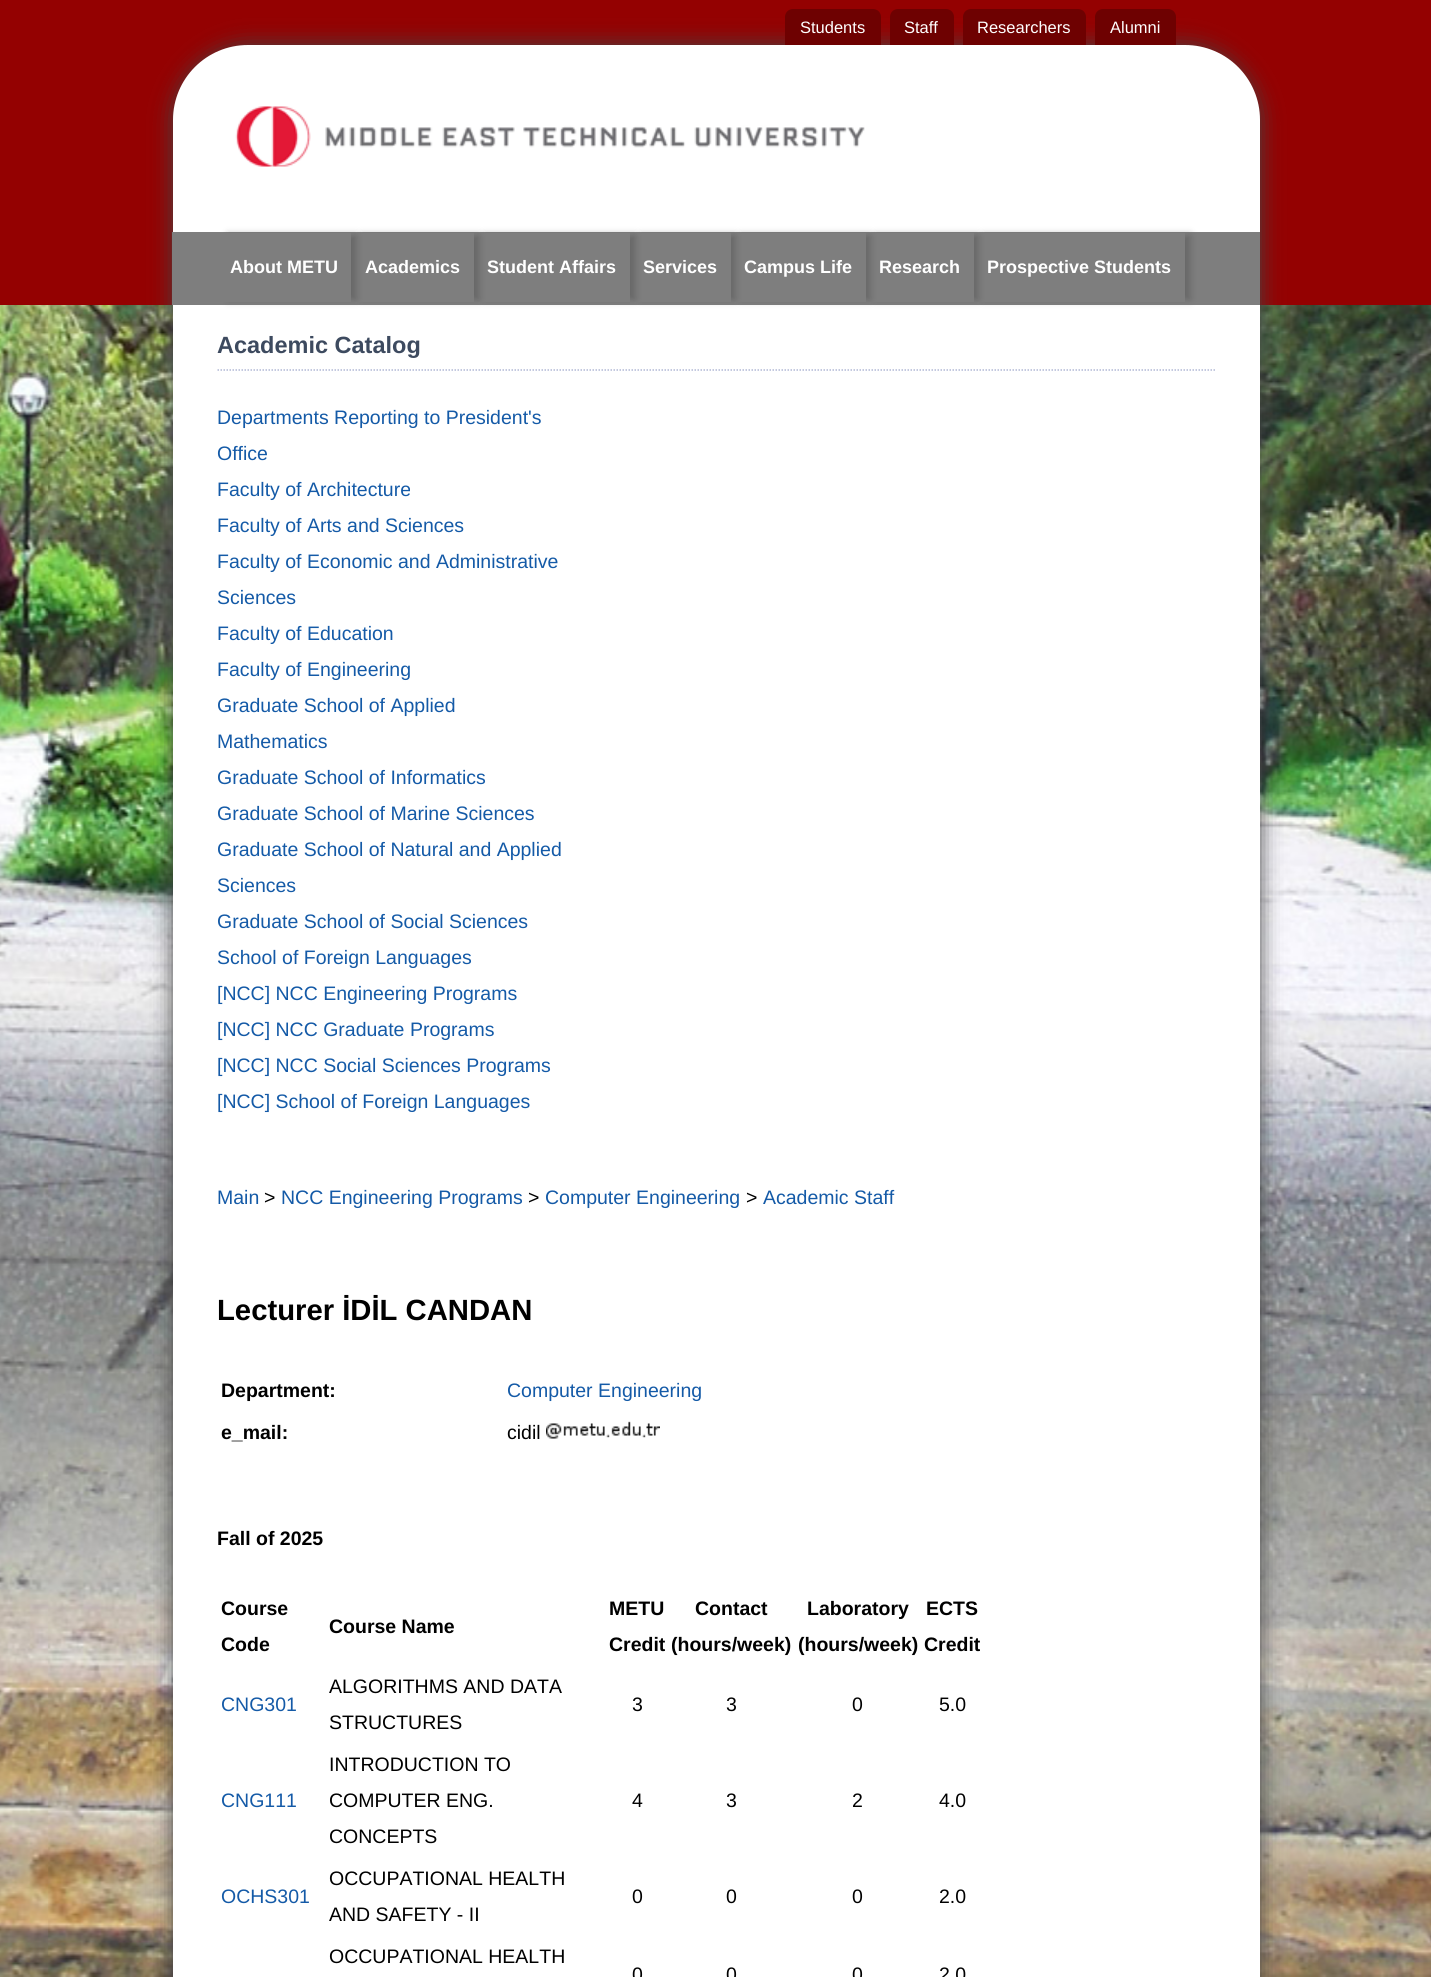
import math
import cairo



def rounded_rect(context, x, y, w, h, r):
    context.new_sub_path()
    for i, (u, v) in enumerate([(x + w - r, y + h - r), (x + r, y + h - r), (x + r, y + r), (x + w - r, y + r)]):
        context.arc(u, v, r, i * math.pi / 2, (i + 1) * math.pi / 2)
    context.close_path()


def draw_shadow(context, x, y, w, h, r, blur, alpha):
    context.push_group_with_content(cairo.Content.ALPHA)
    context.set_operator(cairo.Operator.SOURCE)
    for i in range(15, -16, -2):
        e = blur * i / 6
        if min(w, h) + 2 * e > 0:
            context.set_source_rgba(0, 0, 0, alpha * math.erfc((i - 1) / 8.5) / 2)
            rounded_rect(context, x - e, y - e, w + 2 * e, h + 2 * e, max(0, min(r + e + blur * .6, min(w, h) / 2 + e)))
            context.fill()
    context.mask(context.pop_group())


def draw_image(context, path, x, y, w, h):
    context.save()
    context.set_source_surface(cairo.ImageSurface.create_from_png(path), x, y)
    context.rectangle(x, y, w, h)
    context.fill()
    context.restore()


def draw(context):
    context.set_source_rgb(1, 1, 1)
    context.paint()
    context.set_source_rgb(148 / 255, 1 / 255, 1 / 255)
    context.rectangle(0, 0, 1431, 305)
    context.fill()
    draw_image(context, "images/3.png", 0, 305, 1431, 1672)
    context.set_source_rgb(68 / 255, 68 / 255, 68 / 255)
    draw_shadow(context, 173, 45, 1087, 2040, 75, 11, 1)
    context.set_source_rgb(110 / 255, 1 / 255, 1 / 255)
    context.new_path()
    context.move_to(793, 9)
    context.line_to(873, 9)
    context.curve_to(877.5, 9, 881, 12.5, 881, 17)
    context.line_to(881, 45)
    context.line_to(785, 45)
    context.line_to(785, 17)
    context.curve_to(785, 12.5, 788.5, 9, 793, 9)
    context.close_path()
    context.fill()
    context.new_path()
    context.move_to(898, 9)
    context.line_to(946, 9)
    context.curve_to(950.5, 9, 954, 12.5, 954, 17)
    context.line_to(954, 45)
    context.line_to(890, 45)
    context.line_to(890, 17)
    context.curve_to(890, 12.5, 893.5, 9, 898, 9)
    context.close_path()
    context.fill()
    context.new_path()
    context.move_to(971, 9)
    context.line_to(1078, 9)
    context.curve_to(1082.5, 9, 1086, 12.5, 1086, 17)
    context.line_to(1086, 45)
    context.line_to(963, 45)
    context.line_to(963, 17)
    context.curve_to(963, 12.5, 966.5, 9, 971, 9)
    context.close_path()
    context.fill()
    context.new_path()
    context.move_to(1103, 9)
    context.line_to(1168, 9)
    context.curve_to(1172.5, 9, 1176, 12.5, 1176, 17)
    context.line_to(1176, 45)
    context.line_to(1095, 45)
    context.line_to(1095, 17)
    context.curve_to(1095, 12.5, 1098.5, 9, 1103, 9)
    context.close_path()
    context.fill()
    context.set_source_rgb(1, 1, 1)
    context.new_path()
    context.move_to(248, 45)
    context.line_to(1185, 45)
    context.curve_to(1226.5, 45, 1260, 78.5, 1260, 120)
    context.line_to(1260, 305)
    context.line_to(173, 305)
    context.line_to(173, 120)
    context.curve_to(173, 78.5, 206.5, 45, 248, 45)
    context.close_path()
    context.fill()
    context.set_source_rgb(126 / 255, 126 / 255, 126 / 255)
    context.rectangle(172, 232, 1088, 73)
    context.fill()
    draw_image(context, "images/1.png", 235, 106, 630, 61)
    context.set_source_rgb(1, 1, 1)
    context.rectangle(173, 305, 1087, 1672)
    context.fill()
    context.save()
    context.set_fill_rule(cairo.FillRule.EVEN_ODD)
    context.new_path()
    context.move_to(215, 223)
    context.line_to(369, 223)
    context.line_to(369, 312)
    context.line_to(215, 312)
    context.close_path()
    context.move_to(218, 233)
    context.line_to(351, 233)
    context.line_to(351, 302)
    context.line_to(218, 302)
    context.close_path()
    context.clip()
    context.set_source_rgb(102 / 255, 102 / 255, 102 / 255)
    draw_shadow(context, 228, 236, 128, 63, 0, 4, 1)
    context.restore()
    context.save()
    context.set_fill_rule(cairo.FillRule.EVEN_ODD)
    context.new_path()
    context.move_to(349, 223)
    context.line_to(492, 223)
    context.line_to(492, 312)
    context.line_to(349, 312)
    context.close_path()
    context.move_to(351, 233)
    context.line_to(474, 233)
    context.line_to(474, 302)
    context.line_to(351, 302)
    context.close_path()
    context.clip()
    context.set_source_rgb(102 / 255, 102 / 255, 102 / 255)
    draw_shadow(context, 362, 236, 117, 63, 0, 4, 1)
    context.restore()
    context.save()
    context.set_fill_rule(cairo.FillRule.EVEN_ODD)
    context.new_path()
    context.move_to(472, 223)
    context.line_to(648, 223)
    context.line_to(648, 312)
    context.line_to(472, 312)
    context.close_path()
    context.move_to(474, 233)
    context.line_to(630, 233)
    context.line_to(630, 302)
    context.line_to(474, 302)
    context.close_path()
    context.clip()
    context.set_source_rgb(102 / 255, 102 / 255, 102 / 255)
    draw_shadow(context, 485, 236, 150, 63, 0, 4, 1)
    context.restore()
    context.save()
    context.set_fill_rule(cairo.FillRule.EVEN_ODD)
    context.new_path()
    context.move_to(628, 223)
    context.line_to(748, 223)
    context.line_to(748, 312)
    context.line_to(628, 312)
    context.close_path()
    context.move_to(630, 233)
    context.line_to(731, 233)
    context.line_to(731, 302)
    context.line_to(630, 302)
    context.close_path()
    context.clip()
    context.set_source_rgb(102 / 255, 102 / 255, 102 / 255)
    draw_shadow(context, 641, 236, 94, 63, 0, 4, 1)
    context.restore()
    context.save()
    context.set_fill_rule(cairo.FillRule.EVEN_ODD)
    context.new_path()
    context.move_to(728, 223)
    context.line_to(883, 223)
    context.line_to(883, 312)
    context.line_to(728, 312)
    context.close_path()
    context.move_to(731, 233)
    context.line_to(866, 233)
    context.line_to(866, 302)
    context.line_to(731, 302)
    context.close_path()
    context.clip()
    context.set_source_rgb(102 / 255, 102 / 255, 102 / 255)
    draw_shadow(context, 741, 236, 129, 63, 0, 4, 1)
    context.restore()
    context.save()
    context.set_fill_rule(cairo.FillRule.EVEN_ODD)
    context.new_path()
    context.move_to(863, 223)
    context.line_to(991, 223)
    context.line_to(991, 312)
    context.line_to(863, 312)
    context.close_path()
    context.move_to(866, 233)
    context.line_to(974, 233)
    context.line_to(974, 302)
    context.line_to(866, 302)
    context.close_path()
    context.clip()
    context.set_source_rgb(102 / 255, 102 / 255, 102 / 255)
    draw_shadow(context, 876, 236, 102, 63, 0, 4, 1)
    context.restore()
    context.save()
    context.set_fill_rule(cairo.FillRule.EVEN_ODD)
    context.new_path()
    context.move_to(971, 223)
    context.line_to(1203, 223)
    context.line_to(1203, 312)
    context.line_to(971, 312)
    context.close_path()
    context.move_to(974, 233)
    context.line_to(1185, 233)
    context.line_to(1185, 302)
    context.line_to(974, 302)
    context.close_path()
    context.clip()
    context.set_source_rgb(102 / 255, 102 / 255, 102 / 255)
    draw_shadow(context, 984, 236, 206, 63, 0, 4, 1)
    context.restore()
    context.new_path()
    context.move_to(217.5, 370)
    context.line_to(1215, 370)
    context.set_source_rgb(176 / 255, 183 / 255, 212 / 255)
    context.set_line_width(1.5)
    context.set_dash([1.5, 1.5])
    context.stroke()
    draw_image(context, "images/2.png", 546, 1421, 114, 18)
    context.select_font_face("Liberation Sans")
    context.set_font_size(16.5)
    context.set_source_rgb(1, 1, 1)
    context.move_to(800, 33)
    context.show_text("Students")
    context.move_to(904, 33)
    context.show_text("Staff")
    context.move_to(977, 33)
    context.show_text("Researchers")
    context.move_to(1110, 33)
    context.show_text("Alumni")
    context.select_font_face("Liberation Sans", cairo.FontSlant.NORMAL, cairo.FontWeight.BOLD)
    context.set_font_size(18)
    context.move_to(230, 273)
    context.show_text("About METU")
    context.move_to(365, 273)
    context.show_text("Academics")
    context.move_to(487, 273)
    context.show_text("Student Affairs")
    context.move_to(643, 273)
    context.show_text("Services")
    context.move_to(744, 273)
    context.show_text("Campus Life")
    context.move_to(879, 273)
    context.show_text("Research")
    context.move_to(987, 273)
    context.show_text("Prospective Students")
    context.set_font_size(23.5)
    context.set_source_rgb(61 / 255, 74 / 255, 95 / 255)
    context.move_to(217, 353)
    context.show_text("Academic Catalog")
    context.select_font_face("Liberation Sans")
    context.set_font_size(19.5)
    context.set_source_rgb(20 / 255, 90 / 255, 167 / 255)
    context.move_to(217, 424)
    context.show_text("Departments Reporting to President's")
    context.move_to(217, 460)
    context.show_text("Office")
    context.move_to(217, 496)
    context.show_text("Faculty of Architecture")
    context.move_to(217, 532)
    context.show_text("Faculty of Arts and Sciences")
    context.move_to(217, 568)
    context.show_text("Faculty of Economic and Administrative")
    context.move_to(217, 604)
    context.show_text("Sciences")
    context.move_to(217, 640)
    context.show_text("Faculty of Education")
    context.move_to(217, 676)
    context.show_text("Faculty of Engineering")
    context.move_to(217, 712)
    context.show_text("Graduate School of Applied")
    context.move_to(217, 748)
    context.show_text("Mathematics")
    context.move_to(217, 784)
    context.show_text("Graduate School of Informatics")
    context.move_to(217, 820)
    context.show_text("Graduate School of Marine Sciences")
    context.move_to(217, 856)
    context.show_text("Graduate School of Natural and Applied")
    context.move_to(217, 892)
    context.show_text("Sciences")
    context.move_to(217, 928)
    context.show_text("Graduate School of Social Sciences")
    context.move_to(217, 964)
    context.show_text("School of Foreign Languages")
    context.move_to(217, 1000)
    context.show_text("[NCC] NCC Engineering Programs")
    context.move_to(217, 1036)
    context.show_text("[NCC] NCC Graduate Programs")
    context.move_to(217, 1072)
    context.show_text("[NCC] NCC Social Sciences Programs")
    context.move_to(217, 1108)
    context.show_text("[NCC] School of Foreign Languages")
    context.move_to(217, 1204)
    context.show_text("Main")
    context.set_source_rgb(0, 0, 0)
    context.move_to(264, 1204)
    context.show_text(">")
    context.set_source_rgb(20 / 255, 90 / 255, 167 / 255)
    context.move_to(281, 1204)
    context.show_text("NCC Engineering Programs")
    context.set_source_rgb(0, 0, 0)
    context.move_to(528, 1204)
    context.show_text(">")
    context.set_source_rgb(20 / 255, 90 / 255, 167 / 255)
    context.move_to(545, 1204)
    context.show_text("Computer Engineering")
    context.set_source_rgb(0, 0, 0)
    context.move_to(746, 1204)
    context.show_text(">")
    context.set_source_rgb(20 / 255, 90 / 255, 167 / 255)
    context.move_to(763, 1204)
    context.show_text("Academic Staff")
    context.select_font_face("Liberation Sans", cairo.FontSlant.NORMAL, cairo.FontWeight.BOLD)
    context.set_font_size(29.25)
    context.set_source_rgb(0, 0, 0)
    context.move_to(217, 1320)
    context.show_text("Lecturer İDİL CANDAN")
    context.set_font_size(19.5)
    context.move_to(221, 1397)
    context.show_text("Department:")
    context.select_font_face("Liberation Sans")
    context.set_source_rgb(20 / 255, 90 / 255, 167 / 255)
    context.move_to(507, 1397)
    context.show_text("Computer Engineering")
    context.select_font_face("Liberation Sans", cairo.FontSlant.NORMAL, cairo.FontWeight.BOLD)
    context.set_source_rgb(0, 0, 0)
    context.move_to(221, 1439)
    context.show_text("e_mail:")
    context.select_font_face("Liberation Sans")
    context.move_to(507, 1439)
    context.show_text("cidil")
    context.select_font_face("Liberation Sans", cairo.FontSlant.NORMAL, cairo.FontWeight.BOLD)
    context.move_to(217, 1545)
    context.show_text("Fall of 2025")
    context.move_to(221, 1615)
    context.show_text("Course")
    context.move_to(221, 1651)
    context.show_text("Code")
    context.move_to(329, 1633)
    context.show_text("Course Name")
    context.move_to(609, 1615)
    context.show_text("METU")
    context.move_to(609, 1651)
    context.show_text("Credit")
    context.move_to(695, 1615)
    context.show_text("Contact")
    context.move_to(671, 1651)
    context.show_text("(hours/week)")
    context.move_to(807, 1615)
    context.show_text("Laboratory")
    context.move_to(798, 1651)
    context.show_text("(hours/week)")
    context.move_to(926, 1615)
    context.show_text("ECTS")
    context.move_to(924, 1651)
    context.show_text("Credit")
    context.select_font_face("Liberation Sans")
    context.set_source_rgb(20 / 255, 90 / 255, 167 / 255)
    context.move_to(221, 1711)
    context.show_text("CNG301")
    context.set_source_rgb(0, 0, 0)
    context.move_to(329, 1693)
    context.show_text("ALGORITHMS AND DATA")
    context.move_to(329, 1729)
    context.show_text("STRUCTURES")
    context.move_to(632, 1711)
    context.show_text("3")
    context.move_to(726, 1711)
    context.show_text("3")
    context.move_to(852, 1711)
    context.show_text("0")
    context.move_to(939, 1711)
    context.show_text("5.0")
    context.set_source_rgb(20 / 255, 90 / 255, 167 / 255)
    context.move_to(221, 1807)
    context.show_text("CNG111")
    context.set_source_rgb(0, 0, 0)
    context.move_to(329, 1771)
    context.show_text("INTRODUCTION TO")
    context.move_to(329, 1807)
    context.show_text("COMPUTER ENG.")
    context.move_to(329, 1843)
    context.show_text("CONCEPTS")
    context.move_to(632, 1807)
    context.show_text("4")
    context.move_to(726, 1807)
    context.show_text("3")
    context.move_to(852, 1807)
    context.show_text("2")
    context.move_to(939, 1807)
    context.show_text("4.0")
    context.set_source_rgb(20 / 255, 90 / 255, 167 / 255)
    context.move_to(221, 1903)
    context.show_text("OCHS301")
    context.set_source_rgb(0, 0, 0)
    context.move_to(329, 1885)
    context.show_text("OCCUPATIONAL HEALTH")
    context.move_to(329, 1921)
    context.show_text("AND SAFETY - II")
    context.move_to(632, 1903)
    context.show_text("0")
    context.move_to(726, 1903)
    context.show_text("0")
    context.move_to(852, 1903)
    context.show_text("0")
    context.move_to(939, 1903)
    context.show_text("2.0")
    context.move_to(329, 1963)
    context.show_text("OCCUPATIONAL HEALTH")
    context.move_to(632, 1981)
    context.show_text("0")
    context.move_to(726, 1981)
    context.show_text("0")
    context.move_to(852, 1981)
    context.show_text("0")
    context.move_to(939, 1981)
    context.show_text("2.0")


surface = cairo.ImageSurface(cairo.Format.RGB24, 1431, 1977)
context = cairo.Context(surface)
options = cairo.FontOptions()
options.set_hint_metrics(cairo.HintMetrics.OFF)
options.set_hint_style(cairo.HintStyle.NONE)
context.set_font_options(options)
context.set_miter_limit(4)
draw(context)
surface.write_to_png("out.png")
